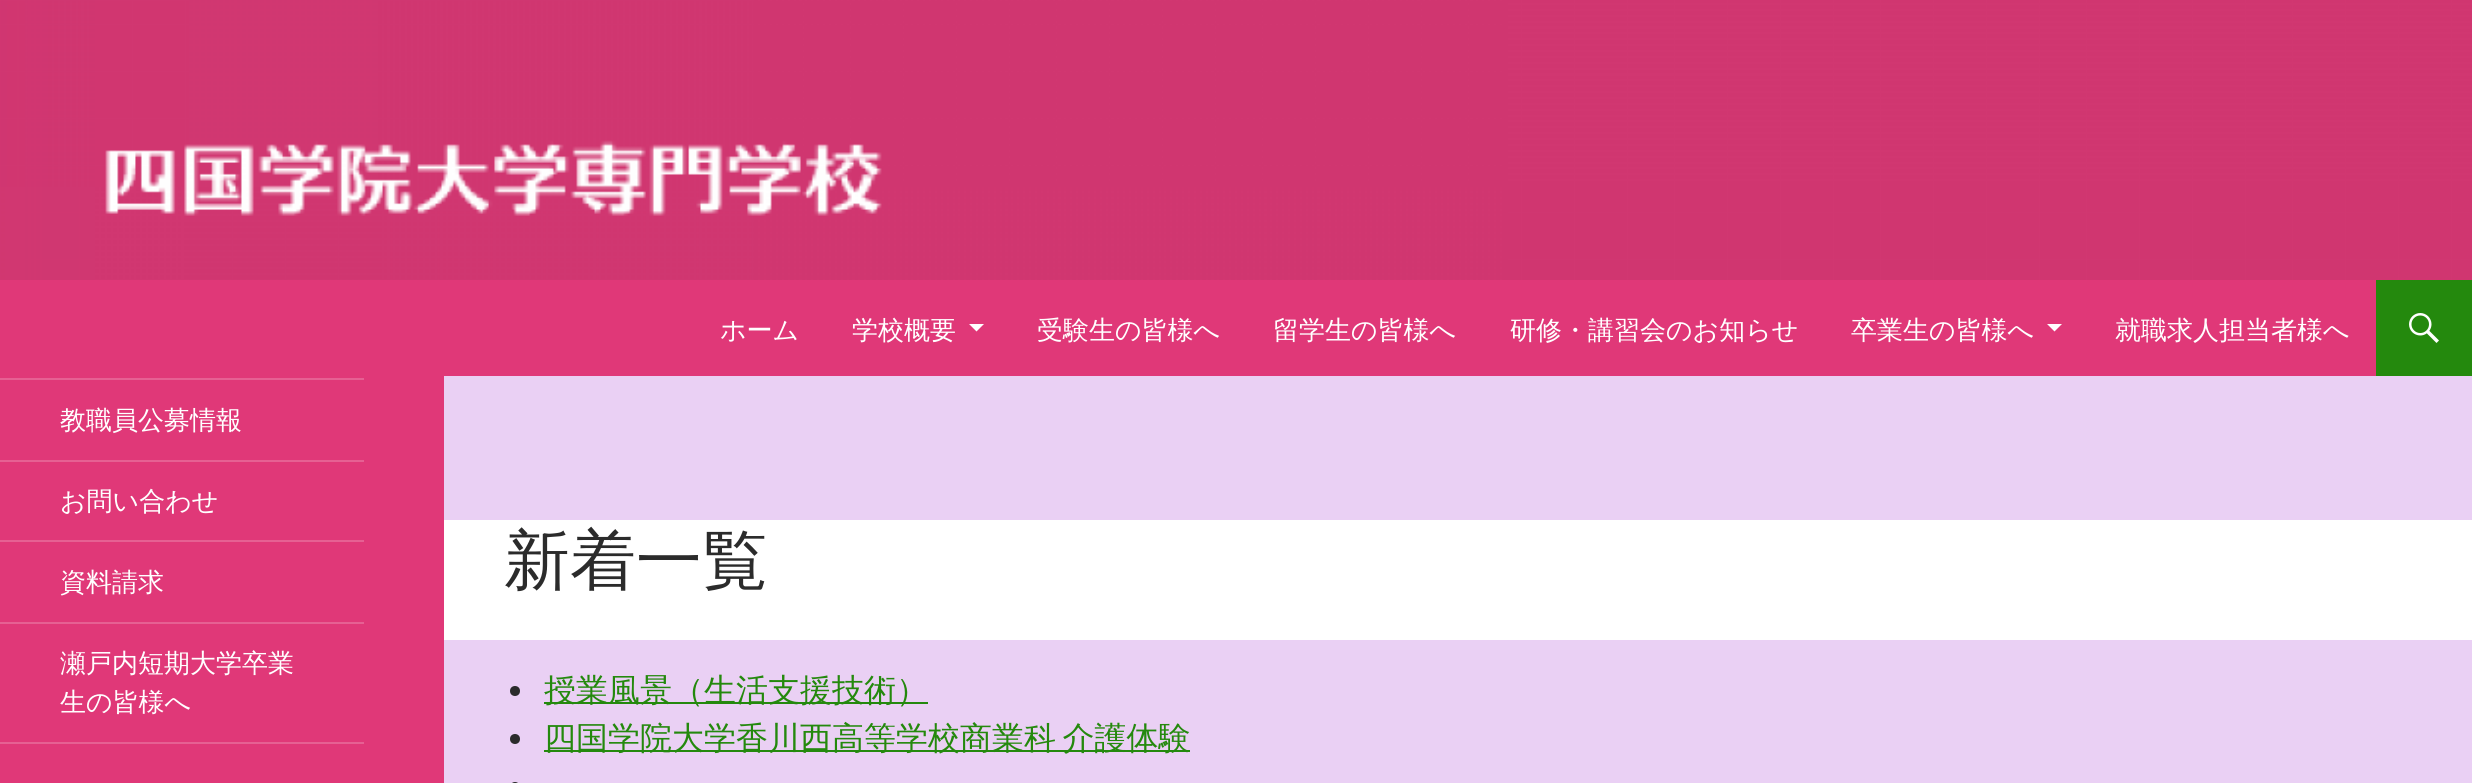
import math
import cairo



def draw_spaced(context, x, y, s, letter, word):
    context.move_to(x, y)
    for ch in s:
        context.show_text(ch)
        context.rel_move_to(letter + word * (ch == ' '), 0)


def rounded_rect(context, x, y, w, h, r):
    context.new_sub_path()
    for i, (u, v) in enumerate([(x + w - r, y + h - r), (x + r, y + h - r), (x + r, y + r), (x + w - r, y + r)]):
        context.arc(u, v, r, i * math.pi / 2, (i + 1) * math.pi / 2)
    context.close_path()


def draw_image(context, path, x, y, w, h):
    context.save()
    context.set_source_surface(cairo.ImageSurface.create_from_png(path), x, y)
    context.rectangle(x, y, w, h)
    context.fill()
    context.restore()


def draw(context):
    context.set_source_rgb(234 / 255, 208 / 255, 244 / 255)
    context.paint()
    draw_image(context, "images/1.png", 0, 0, 2472, 280)
    context.set_source_rgb(224 / 255, 56 / 255, 120 / 255)
    context.rectangle(0, 280, 2376, 96)
    context.fill()
    context.set_source_rgb(1, 1, 1)
    context.new_path()
    context.move_to(969, 324)
    context.line_to(976.5, 331.5)
    context.line_to(984, 324)
    context.close_path()
    context.fill()
    context.new_path()
    context.move_to(2047, 324)
    context.line_to(2054.5, 331.5)
    context.line_to(2062, 324)
    context.close_path()
    context.fill()
    context.set_source_rgb(36 / 255, 137 / 255, 13 / 255)
    context.rectangle(2376, 280, 96, 96)
    context.fill()
    draw_image(context, "images/2.png", 2409, 313, 30, 30)
    context.set_source_rgb(224 / 255, 56 / 255, 120 / 255)
    context.rectangle(0, 376, 444, 407)
    context.fill()
    context.set_source_rgb(230 / 255, 96 / 255, 147 / 255)
    context.rectangle(0, 742, 364, 2)
    context.fill()
    context.rectangle(0, 378, 364, 2)
    context.fill()
    context.rectangle(0, 460, 364, 2)
    context.fill()
    context.rectangle(0, 540, 364, 2)
    context.fill()
    context.rectangle(0, 622, 364, 2)
    context.fill()
    context.set_source_rgb(1, 1, 1)
    context.rectangle(444, 520, 2028, 120)
    context.fill()
    context.set_source_rgb(43 / 255, 43 / 255, 43 / 255)
    context.arc(515, 691, 5, 0, 2 * math.pi)
    context.fill()
    context.set_source_rgb(36 / 255, 137 / 255, 13 / 255)
    context.rectangle(544, 702, 384, 2)
    context.fill()
    context.set_source_rgb(43 / 255, 43 / 255, 43 / 255)
    context.arc(515, 739, 5, 0, 2 * math.pi)
    context.fill()
    context.set_source_rgb(36 / 255, 137 / 255, 13 / 255)
    context.rectangle(544, 750, 646, 2)
    context.fill()
    context.set_source_rgb(43 / 255, 43 / 255, 43 / 255)
    rounded_rect(context, 510, 782, 10, 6, 5)
    context.fill()
    context.select_font_face("WenQuanYi Zen Hei Medium")
    context.set_font_size(26)
    context.set_source_rgb(1, 1, 1)
    context.move_to(720, 339)
    context.show_text("ホーム")
    context.move_to(852, 339)
    context.show_text("学校概要")
    context.move_to(1037, 339)
    context.show_text("受験生の皆様へ")
    context.move_to(1273, 339)
    context.show_text("留学生の皆様へ")
    context.move_to(1510, 339)
    context.show_text("研修・講習会のお知らせ")
    context.move_to(1851, 339)
    context.show_text("卒業生の皆様へ")
    context.move_to(2115, 339)
    context.show_text("就職求人担当者様へ")
    context.move_to(60, 429)
    context.show_text("教職員公募情報")
    context.move_to(60, 510)
    context.show_text("お問い合わせ")
    context.move_to(60, 591)
    context.show_text("資料請求")
    context.move_to(60, 672)
    context.show_text("瀬戸内短期大学卒業")
    context.move_to(60, 711)
    context.show_text("生の皆様へ")
    context.set_font_size(66)
    context.set_source_rgb(43 / 255, 43 / 255, 43 / 255)
    context.move_to(504, 583)
    context.show_text("新着一覧")
    context.set_font_size(32)
    context.set_source_rgb(36 / 255, 137 / 255, 13 / 255)
    context.move_to(544, 701)
    context.show_text("授業風景（生活支援技術）")
    draw_spaced(context, 544, 749, "四国学院大学香川西高等学校商業科 介護体験", 0, -3)


surface = cairo.ImageSurface(cairo.Format.RGB24, 2472, 783)
context = cairo.Context(surface)
options = cairo.FontOptions()
options.set_hint_metrics(cairo.HintMetrics.OFF)
options.set_hint_style(cairo.HintStyle.NONE)
context.set_font_options(options)
context.set_miter_limit(4)
draw(context)
surface.write_to_png("out.png")
